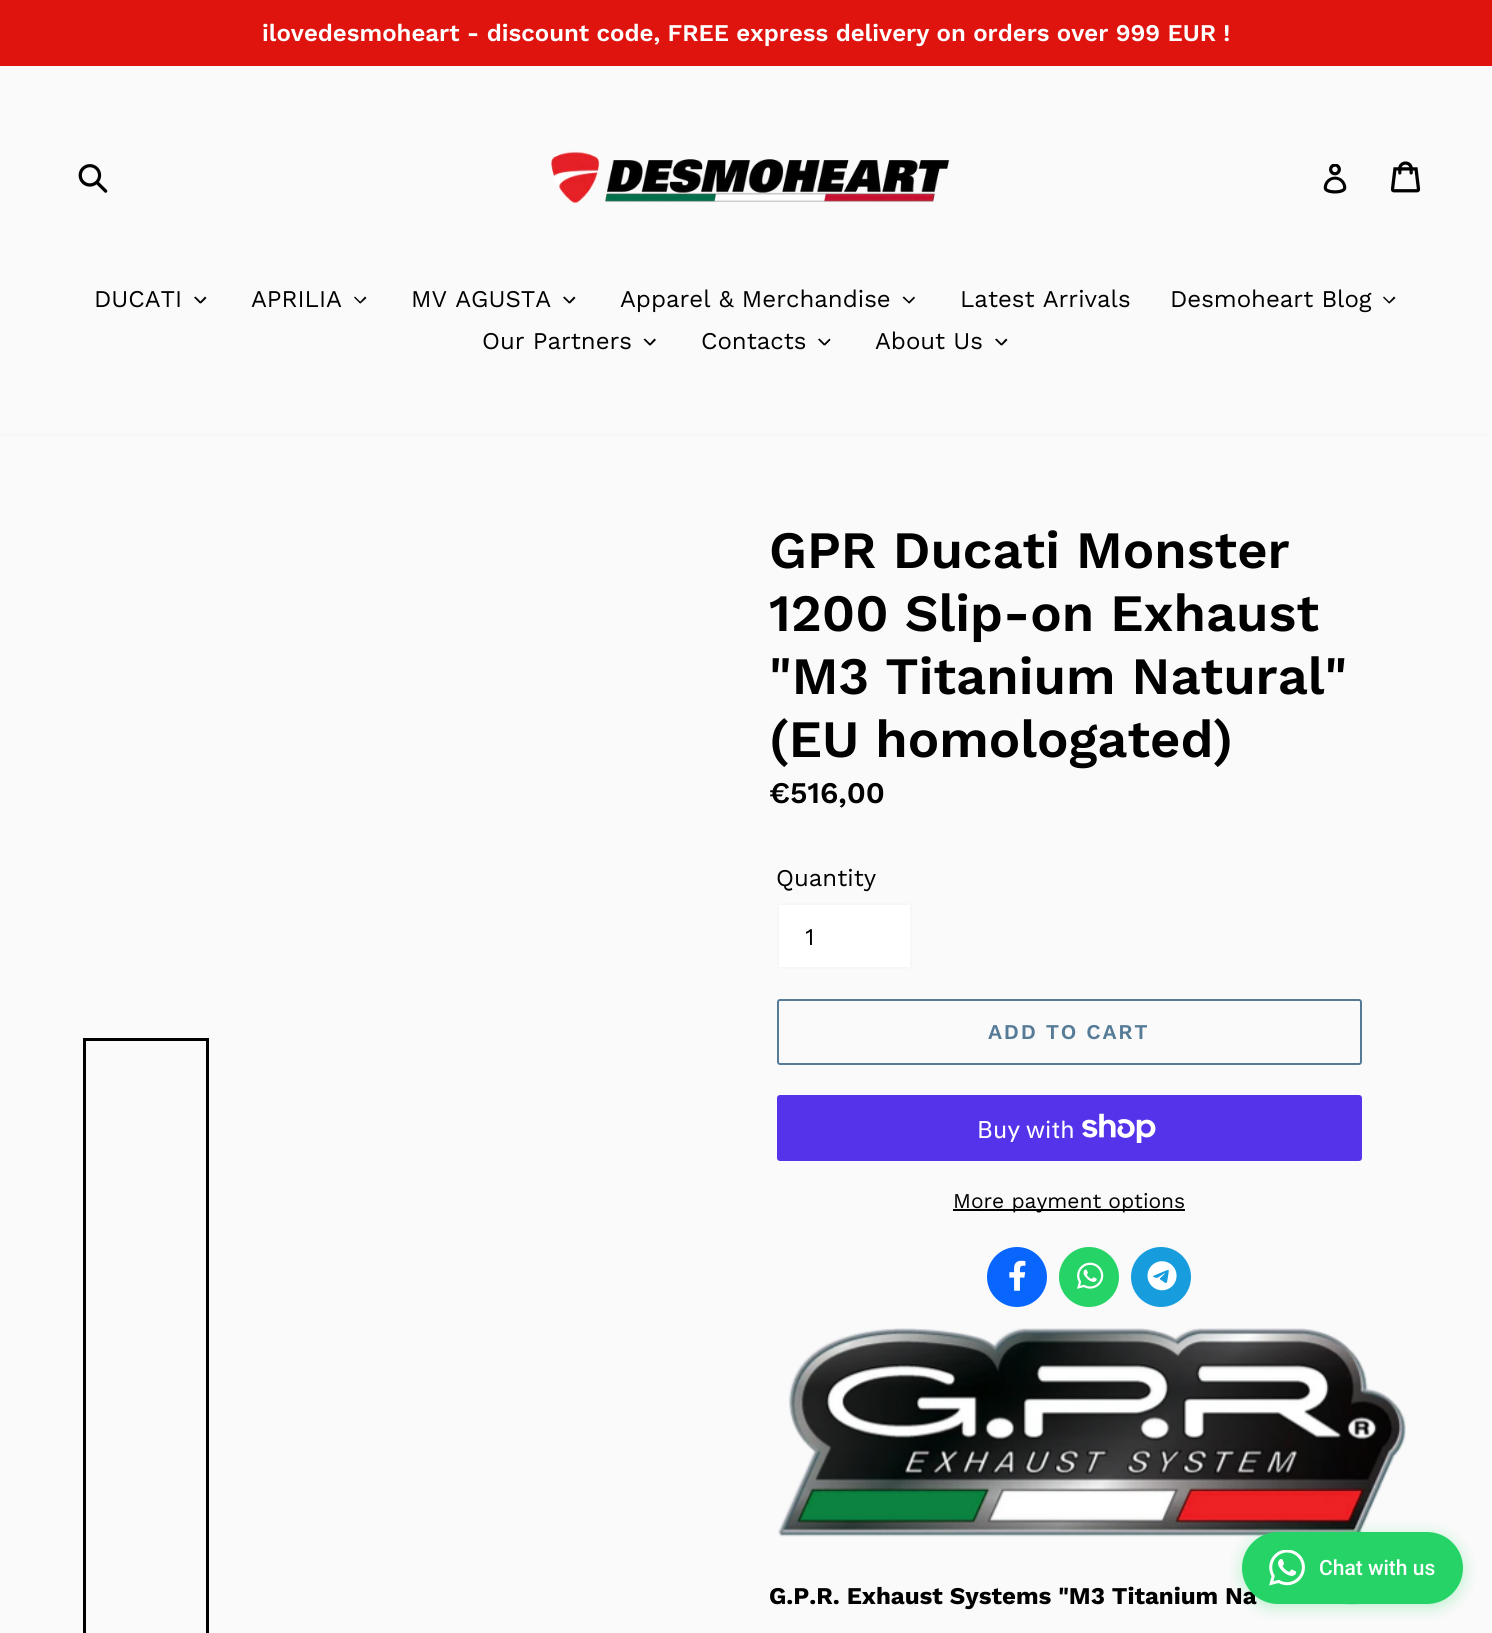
import math
import cairo



def draw_spaced(context, x, y, s, letter, word):
    context.move_to(x, y)
    for ch in s:
        context.show_text(ch)
        context.rel_move_to(letter + word * (ch == ' '), 0)


def rounded_rect(context, x, y, w, h, r):
    context.new_sub_path()
    for i, (u, v) in enumerate([(x + w - r, y + h - r), (x + r, y + h - r), (x + r, y + r), (x + w - r, y + r)]):
        context.arc(u, v, r, i * math.pi / 2, (i + 1) * math.pi / 2)
    context.close_path()


def draw_shadow(context, x, y, w, h, r, blur, alpha):
    context.push_group_with_content(cairo.Content.ALPHA)
    context.set_operator(cairo.Operator.SOURCE)
    for i in range(15, -16, -2):
        e = blur * i / 6
        if min(w, h) + 2 * e > 0:
            context.set_source_rgba(0, 0, 0, alpha * math.erfc((i - 1) / 8.5) / 2)
            rounded_rect(context, x - e, y - e, w + 2 * e, h + 2 * e, max(0, min(r + e + blur * .6, min(w, h) / 2 + e)))
            context.fill()
    context.mask(context.pop_group())


def draw_image(context, path, x, y, w, h):
    context.save()
    context.set_source_surface(cairo.ImageSurface.create_from_png(path), x, y)
    context.rectangle(x, y, w, h)
    context.fill()
    context.restore()


def draw(context):
    context.set_source_rgb(250 / 255, 250 / 255, 250 / 255)
    context.paint()
    context.set_source_rgb(224 / 255, 20 / 255, 15 / 255)
    context.rectangle(0, 0, 1492, 66)
    context.fill()
    draw_image(context, "images/1.png", 78, 164, 30, 29)
    draw_image(context, "images/2.png", 550, 151, 400, 53)
    draw_image(context, "images/3.png", 1323, 164, 24, 30)
    draw_image(context, "images/4.png", 1391, 161, 30, 32)
    context.set_source_rgb(247 / 255, 247 / 255, 247 / 255)
    context.rectangle(0, 434, 1492, 2)
    context.fill()
    context.set_source_rgb(0, 0, 0)
    context.new_path()
    context.move_to(205, 296.5)
    context.line_to(206.5, 298)
    context.line_to(201, 303.5)
    context.line_to(199.5, 302.5)
    context.close_path()
    context.fill()
    context.new_path()
    context.move_to(195.5, 296.5)
    context.line_to(201.5, 302.5)
    context.line_to(200, 303.5)
    context.line_to(194, 297.5)
    context.close_path()
    context.fill()
    context.new_path()
    context.move_to(365, 296.5)
    context.line_to(366.5, 298)
    context.line_to(360.5, 303.5)
    context.line_to(359.5, 302.5)
    context.close_path()
    context.fill()
    context.new_path()
    context.move_to(355, 296.5)
    context.line_to(361, 302.5)
    context.line_to(360, 303.5)
    context.line_to(354, 297.5)
    context.close_path()
    context.fill()
    context.new_path()
    context.move_to(574, 296.5)
    context.line_to(575.5, 298)
    context.line_to(570, 303.5)
    context.line_to(568.5, 302.5)
    context.close_path()
    context.fill()
    context.new_path()
    context.move_to(564.5, 296.5)
    context.line_to(570.5, 302.5)
    context.line_to(569, 303.5)
    context.line_to(563, 297.5)
    context.close_path()
    context.fill()
    context.new_path()
    context.move_to(914, 296.5)
    context.line_to(915, 298)
    context.line_to(909.5, 303.5)
    context.line_to(908, 302.5)
    context.close_path()
    context.fill()
    context.new_path()
    context.move_to(904, 296.5)
    context.line_to(910, 302.5)
    context.line_to(909, 303.5)
    context.line_to(902.5, 297.5)
    context.close_path()
    context.fill()
    context.new_path()
    context.move_to(1394, 296.5)
    context.line_to(1395.5, 298)
    context.line_to(1389.5, 303.5)
    context.line_to(1388.5, 302.5)
    context.close_path()
    context.fill()
    context.new_path()
    context.move_to(1384, 296.5)
    context.line_to(1390, 302.5)
    context.line_to(1389, 303.5)
    context.line_to(1383, 297.5)
    context.close_path()
    context.fill()
    context.new_path()
    context.move_to(654.5, 338.5)
    context.line_to(656, 340)
    context.line_to(650.5, 345.5)
    context.line_to(649, 344.5)
    context.close_path()
    context.fill()
    context.new_path()
    context.move_to(645, 338.5)
    context.line_to(651, 344.5)
    context.line_to(649.5, 345.5)
    context.line_to(643.5, 339.5)
    context.close_path()
    context.fill()
    context.new_path()
    context.move_to(829.5, 338.5)
    context.line_to(830.5, 340)
    context.line_to(825, 345.5)
    context.line_to(823.5, 344.5)
    context.close_path()
    context.fill()
    context.new_path()
    context.move_to(819.5, 338.5)
    context.line_to(825.5, 344.5)
    context.line_to(824, 345.5)
    context.line_to(818, 339.5)
    context.close_path()
    context.fill()
    context.new_path()
    context.move_to(1006, 338.5)
    context.line_to(1007.5, 340)
    context.line_to(1002, 345.5)
    context.line_to(1000.5, 344.5)
    context.close_path()
    context.fill()
    context.new_path()
    context.move_to(996.5, 338.5)
    context.line_to(1002.5, 344.5)
    context.line_to(1001, 345.5)
    context.line_to(995, 339.5)
    context.close_path()
    context.fill()
    context.rectangle(84.5, 1039.5, 123, 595)
    context.set_line_width(3)
    context.stroke()
    context.set_source_rgb(1, 1, 1)
    rounded_rect(context, 778, 904, 133, 64, 2)
    context.fill_preserve()
    context.set_source_rgb(247 / 255, 247 / 255, 247 / 255)
    context.set_line_width(2)
    context.stroke()
    rounded_rect(context, 778, 1000, 583, 64, 2)
    context.set_source_rgb(85 / 255, 123 / 255, 151 / 255)
    context.stroke()
    context.set_source_rgb(84 / 255, 51 / 255, 235 / 255)
    rounded_rect(context, 777, 1095, 585, 66, 3)
    context.fill()
    draw_image(context, "images/5.png", 1082, 1113, 74, 30)
    context.set_source_rgb(0, 0, 0)
    context.rectangle(953, 1209, 232, 2)
    context.fill()
    context.set_source_rgb(8 / 255, 102 / 255, 1)
    context.arc(1017, 1277, 30, 0, 2 * math.pi)
    context.fill()
    draw_image(context, "images/6.png", 1009, 1260, 17, 31)
    context.set_source_rgb(37 / 255, 211 / 255, 102 / 255)
    context.arc(1089, 1277, 30, 0, 2 * math.pi)
    context.fill()
    draw_image(context, "images/7.png", 1077, 1262, 27, 27)
    context.set_source_rgb(23 / 255, 156 / 255, 222 / 255)
    context.arc(1161, 1277, 30, 0, 2 * math.pi)
    context.fill()
    draw_image(context, "images/8.png", 1147, 1261, 30, 30)
    draw_image(context, "images/9.png", 777, 1328, 629, 209)
    context.set_source_rgba(37 / 255, 211 / 255, 102 / 255, 0.2)
    context.arc(1351.5, 1567.5, 37.5, 0, 2 * math.pi)
    context.fill()
    context.set_source_rgb(37 / 255, 211 / 255, 102 / 255)
    draw_shadow(context, 1242, 1535, 221, 72, 36, 7.5, 0.3)
    context.select_font_face("Work Sans SemiBold")
    context.set_font_size(24)
    context.set_source_rgb(1, 1, 1)
    context.move_to(262, 41)
    context.show_text("ilovedesmoheart - discount code, FREE express delivery on orders over 999 EUR !")
    context.select_font_face("Work Sans")
    context.set_source_rgb(0, 0, 0)
    context.move_to(94, 307)
    context.show_text("DUCATI")
    context.move_to(251, 307)
    context.show_text("APRILIA")
    context.move_to(411, 307)
    context.show_text("MV AGUSTA")
    context.move_to(620, 307)
    context.show_text("Apparel & Merchandise")
    context.move_to(960, 307)
    context.show_text("Latest Arrivals")
    context.move_to(1170, 307)
    context.show_text("Desmoheart Blog")
    context.move_to(482, 349)
    context.show_text("Our Partners")
    context.move_to(701, 349)
    context.show_text("Contacts")
    context.move_to(875, 349)
    context.show_text("About Us")
    context.select_font_face("Work Sans SemiBold")
    context.set_font_size(52.5)
    context.move_to(769, 568)
    context.show_text("GPR Ducati Monster")
    context.move_to(769, 631)
    context.show_text("1200 Slip-on Exhaust")
    context.move_to(769, 694)
    context.show_text("\"M3 Titanium Natural\"")
    context.move_to(769, 757)
    context.show_text("(EU homologated)")
    context.set_font_size(30)
    context.move_to(769, 803)
    context.show_text("€516,00")
    context.select_font_face("Work Sans")
    context.set_font_size(24)
    context.move_to(776, 886)
    context.show_text("Quantity")
    context.save()
    context.rectangle(806, 923, 55, 28)
    context.clip()
    context.move_to(805, 945)
    context.show_text("1")
    context.restore()
    context.select_font_face("Work Sans SemiBold")
    context.set_font_size(21)
    context.set_source_rgb(85 / 255, 123 / 255, 151 / 255)
    draw_spaced(context, 988, 1039, "ADD TO CART", 1.75, 0)
    context.select_font_face("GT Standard")
    context.set_font_size(24)
    context.set_source_rgb(1, 1, 1)
    context.move_to(977, 1138)
    context.show_text("Buy with")
    context.select_font_face("Work Sans")
    context.set_font_size(21)
    context.set_source_rgb(0, 0, 0)
    context.move_to(953, 1208)
    context.show_text("More payment options")
    context.select_font_face("Work Sans", cairo.FontSlant.NORMAL, cairo.FontWeight.BOLD)
    context.set_font_size(24)
    context.move_to(769, 1604)
    context.show_text("G.P.R. Exhaust Systems \"M3 Titanium Na")
    context.set_source_rgb(37 / 255, 211 / 255, 102 / 255)
    rounded_rect(context, 1242, 1532, 221, 72, 36)
    context.fill()
    draw_image(context, "images/10.png", 1269, 1550, 36, 36)
    context.select_font_face("Roboto Medium")
    context.set_font_size(21)
    context.set_source_rgb(1, 1, 1)
    context.move_to(1319, 1575)
    context.show_text("Chat with us")


surface = cairo.ImageSurface(cairo.Format.RGB24, 1492, 1633)
context = cairo.Context(surface)
options = cairo.FontOptions()
options.set_hint_metrics(cairo.HintMetrics.OFF)
options.set_hint_style(cairo.HintStyle.NONE)
context.set_font_options(options)
context.set_miter_limit(4)
draw(context)
surface.write_to_png("out.png")
